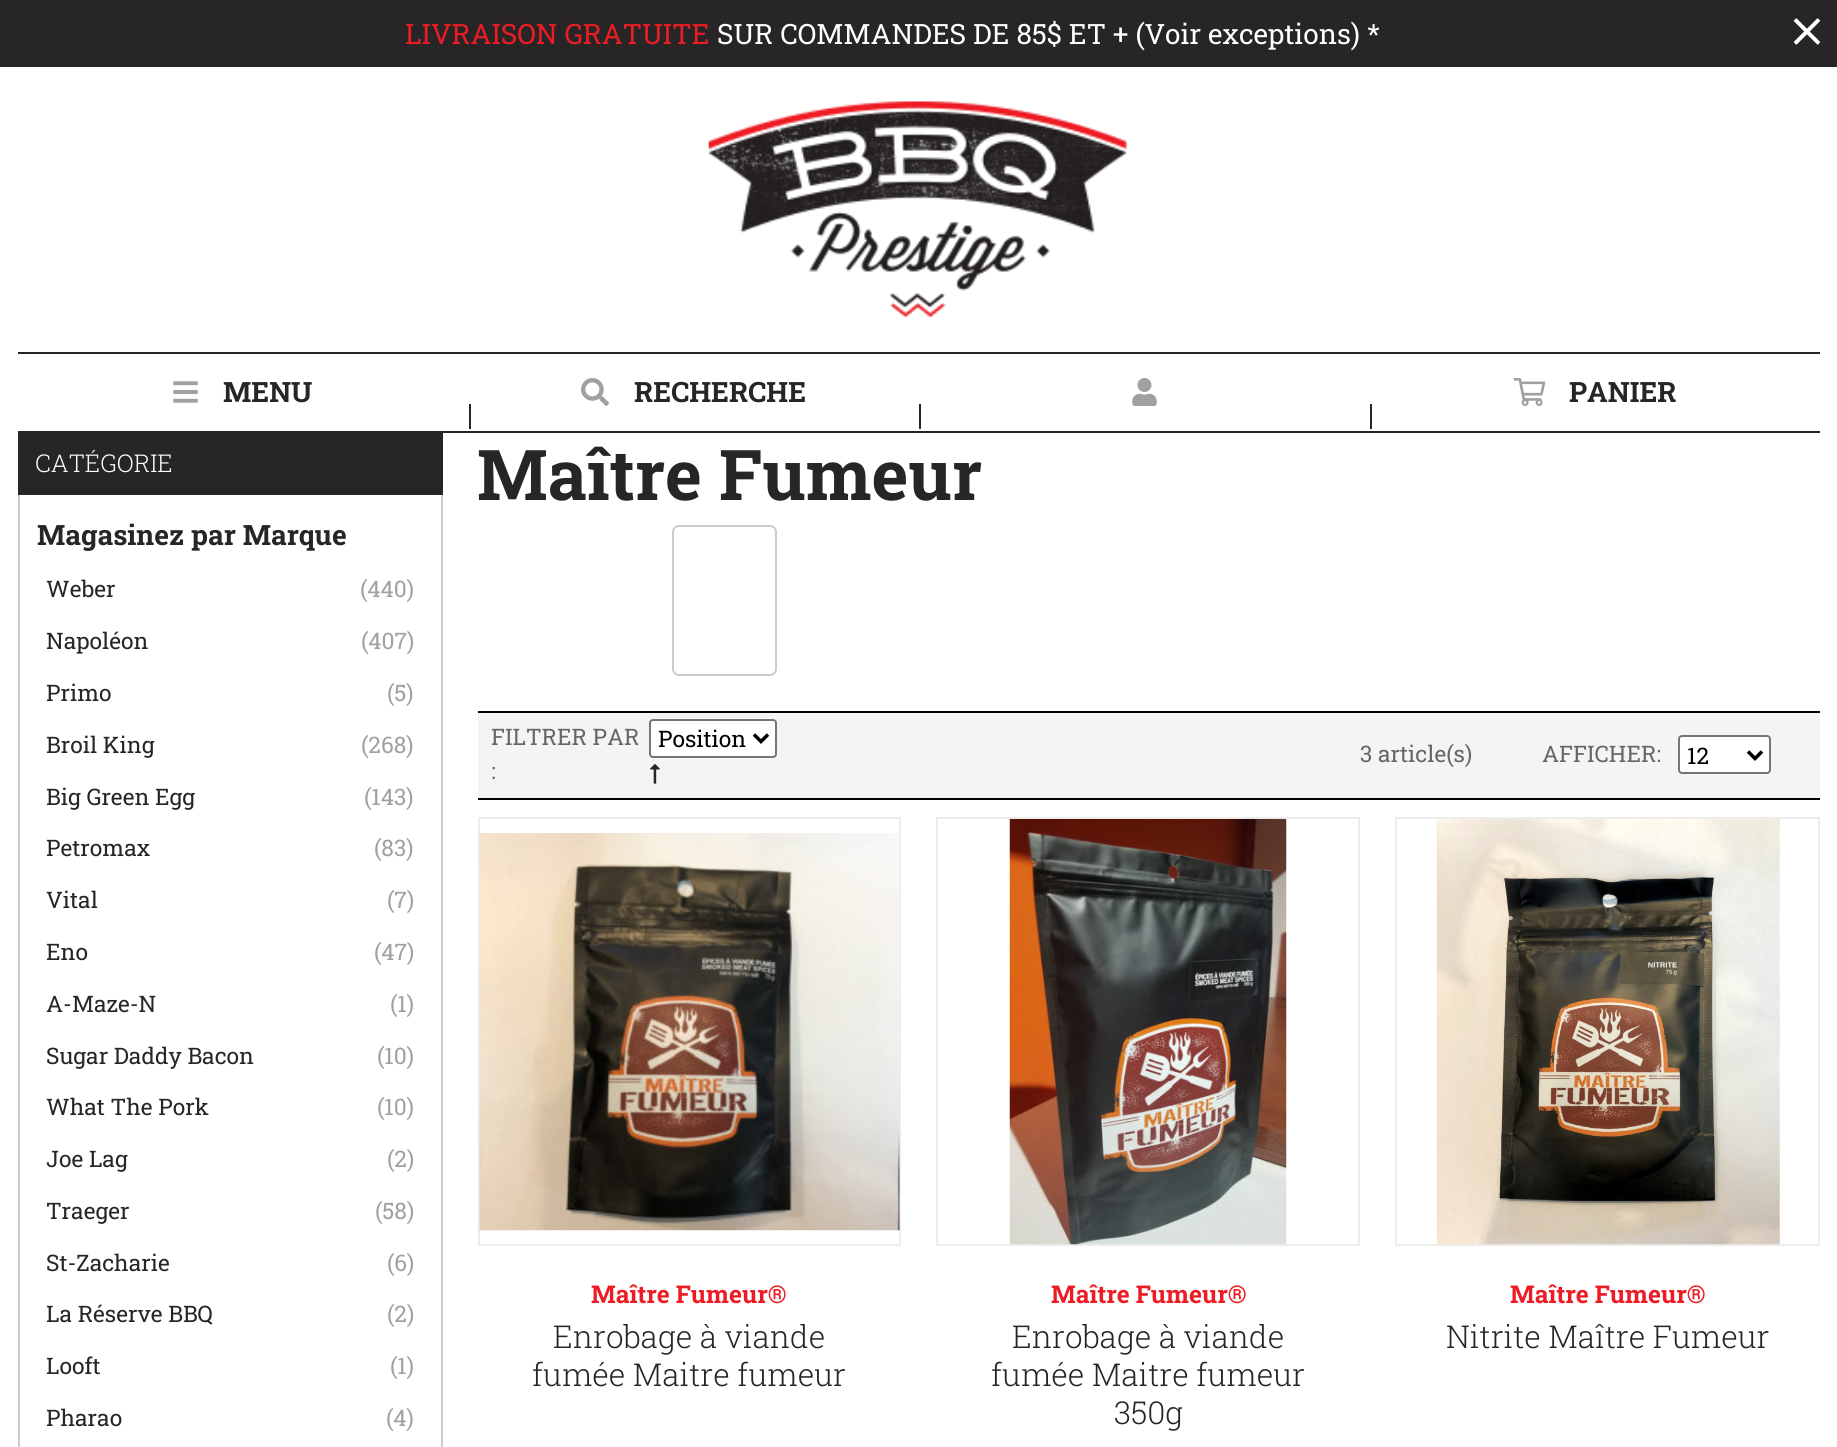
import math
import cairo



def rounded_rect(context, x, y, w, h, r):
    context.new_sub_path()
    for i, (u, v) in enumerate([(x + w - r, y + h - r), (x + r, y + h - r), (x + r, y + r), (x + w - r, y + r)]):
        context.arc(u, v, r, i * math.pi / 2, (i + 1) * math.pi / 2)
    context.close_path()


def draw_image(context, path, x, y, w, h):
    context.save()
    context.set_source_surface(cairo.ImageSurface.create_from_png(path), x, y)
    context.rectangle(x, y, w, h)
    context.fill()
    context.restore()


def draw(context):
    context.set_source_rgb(1, 1, 1)
    context.paint()
    context.set_source_rgb(39 / 255, 37 / 255, 37 / 255)
    context.rectangle(0, 0, 1837, 67)
    context.fill()
    draw_image(context, "images/1.png", 1793, 18, 28, 27)
    draw_image(context, "images/2.png", 708, 101, 419, 216)
    context.rectangle(18, 352, 1802, 2)
    context.fill()
    context.rectangle(18, 431, 1802, 2)
    context.fill()
    draw_image(context, "images/3.png", 173, 381, 25, 22)
    draw_image(context, "images/4.png", 581, 378, 28, 28)
    context.rectangle(469, 404, 2, 25)
    context.fill()
    draw_image(context, "images/5.png", 1132, 378, 25, 28)
    context.rectangle(919, 404, 2, 25)
    context.fill()
    draw_image(context, "images/6.png", 1513, 378, 33, 28)
    context.rectangle(1370, 404, 2, 25)
    context.fill()
    context.rectangle(18, 433, 425, 62)
    context.fill()
    context.set_source_rgb(204 / 255, 204 / 255, 204 / 255)
    context.rectangle(441, 495, 2, 952)
    context.fill()
    context.rectangle(18, 495, 2, 952)
    context.fill()
    rounded_rect(context, 673, 526, 103, 149, 6)
    context.stroke()
    context.set_source_rgb(244 / 255, 244 / 255, 244 / 255)
    context.rectangle(478, 713, 1342, 85)
    context.fill()
    context.set_source_rgb(0, 0, 0)
    context.rectangle(478, 711, 1342, 2)
    context.fill()
    context.rectangle(478, 798, 1342, 2)
    context.fill()
    context.set_source_rgb(1, 1, 1)
    rounded_rect(context, 650, 720, 126, 37, 3)
    context.fill_preserve()
    context.set_source_rgb(118 / 255, 118 / 255, 118 / 255)
    context.stroke()
    context.new_path()
    context.move_to(754, 734.5)
    context.line_to(761, 741.5)
    context.line_to(768, 734.5)
    context.set_source_rgb(0, 0, 0)
    context.set_line_width(3.5)
    context.stroke()
    draw_image(context, "images/7.png", 650, 764, 10, 20)
    context.set_source_rgb(1, 1, 1)
    rounded_rect(context, 1679, 736, 91, 37, 3)
    context.fill_preserve()
    context.set_source_rgb(118 / 255, 118 / 255, 118 / 255)
    context.set_line_width(2)
    context.stroke()
    context.new_path()
    context.move_to(1748, 751.5)
    context.line_to(1755, 758.5)
    context.line_to(1762, 751.5)
    context.set_source_rgb(0, 0, 0)
    context.set_line_width(3.5)
    context.stroke()
    context.rectangle(479, 818, 421, 427)
    context.set_source_rgb(237 / 255, 237 / 255, 237 / 255)
    context.set_line_width(2)
    context.stroke()
    draw_image(context, "images/8.png", 479, 833, 421, 398)
    context.rectangle(937, 818, 422, 427)
    context.stroke()
    draw_image(context, "images/9.png", 1009, 819, 278, 426)
    context.rectangle(1396, 818, 423, 427)
    context.stroke()
    draw_image(context, "images/10.png", 1436, 819, 344, 426)
    context.select_font_face("Roboto Slab")
    context.set_font_size(28)
    context.set_source_rgb(237 / 255, 28 / 255, 36 / 255)
    context.move_to(405, 44)
    context.show_text("LIVRAISON GRATUITE")
    context.set_source_rgb(1, 1, 1)
    context.move_to(717, 44)
    context.show_text("SUR COMMANDES DE 85$ ET + (Voir exceptions) *")
    context.select_font_face("Roboto Slab", cairo.FontSlant.NORMAL, cairo.FontWeight.BOLD)
    context.set_source_rgb(39 / 255, 37 / 255, 37 / 255)
    context.move_to(223, 402)
    context.show_text("MENU")
    context.move_to(634, 402)
    context.show_text("RECHERCHE")
    context.move_to(1569, 402)
    context.show_text("PANIER")
    context.select_font_face("Roboto Slab Light")
    context.set_font_size(24.5)
    context.set_source_rgb(1, 1, 1)
    context.move_to(35, 472)
    context.show_text("CATÉGORIE")
    context.select_font_face("Roboto Slab", cairo.FontSlant.NORMAL, cairo.FontWeight.BOLD)
    context.set_font_size(28)
    context.set_source_rgb(39 / 255, 37 / 255, 37 / 255)
    context.move_to(37, 545)
    context.show_text("Magasinez par Marque")
    context.select_font_face("Roboto Slab")
    context.set_font_size(22.75)
    context.move_to(46, 597)
    context.show_text("Weber")
    context.set_source_rgb(160 / 255, 160 / 255, 160 / 255)
    context.move_to(360, 597)
    context.show_text("(440)")
    context.set_source_rgb(39 / 255, 37 / 255, 37 / 255)
    context.move_to(46, 649)
    context.show_text("Napoléon")
    context.set_source_rgb(160 / 255, 160 / 255, 160 / 255)
    context.move_to(361, 649)
    context.show_text("(407)")
    context.set_source_rgb(39 / 255, 37 / 255, 37 / 255)
    context.move_to(46, 701)
    context.show_text("Primo")
    context.set_source_rgb(160 / 255, 160 / 255, 160 / 255)
    context.move_to(387, 701)
    context.show_text("(5)")
    context.set_source_rgb(39 / 255, 37 / 255, 37 / 255)
    context.move_to(46, 753)
    context.show_text("Broil King")
    context.set_source_rgb(160 / 255, 160 / 255, 160 / 255)
    context.move_to(361, 753)
    context.show_text("(268)")
    context.set_source_rgb(39 / 255, 37 / 255, 37 / 255)
    context.move_to(46, 805)
    context.show_text("Big Green Egg")
    context.set_source_rgb(160 / 255, 160 / 255, 160 / 255)
    context.move_to(364, 805)
    context.show_text("(143)")
    context.set_source_rgb(39 / 255, 37 / 255, 37 / 255)
    context.move_to(46, 856)
    context.show_text("Petromax")
    context.set_source_rgb(160 / 255, 160 / 255, 160 / 255)
    context.move_to(374, 856)
    context.show_text("(83)")
    context.set_source_rgb(39 / 255, 37 / 255, 37 / 255)
    context.move_to(46, 908)
    context.show_text("Vital")
    context.set_source_rgb(160 / 255, 160 / 255, 160 / 255)
    context.move_to(387, 908)
    context.show_text("(7)")
    context.set_source_rgb(39 / 255, 37 / 255, 37 / 255)
    context.move_to(46, 960)
    context.show_text("Eno")
    context.set_source_rgb(160 / 255, 160 / 255, 160 / 255)
    context.move_to(374, 960)
    context.show_text("(47)")
    context.set_source_rgb(39 / 255, 37 / 255, 37 / 255)
    context.move_to(46, 1012)
    context.show_text("A-Maze-N")
    context.set_source_rgb(160 / 255, 160 / 255, 160 / 255)
    context.move_to(390, 1012)
    context.show_text("(1)")
    context.set_source_rgb(39 / 255, 37 / 255, 37 / 255)
    context.move_to(46, 1064)
    context.show_text("Sugar Daddy Bacon")
    context.set_source_rgb(160 / 255, 160 / 255, 160 / 255)
    context.move_to(377, 1064)
    context.show_text("(10)")
    context.set_source_rgb(39 / 255, 37 / 255, 37 / 255)
    context.move_to(46, 1115)
    context.show_text("What The Pork")
    context.set_source_rgb(160 / 255, 160 / 255, 160 / 255)
    context.move_to(377, 1115)
    context.show_text("(10)")
    context.set_source_rgb(39 / 255, 37 / 255, 37 / 255)
    context.move_to(46, 1167)
    context.show_text("Joe Lag")
    context.set_source_rgb(160 / 255, 160 / 255, 160 / 255)
    context.move_to(387, 1167)
    context.show_text("(2)")
    context.set_source_rgb(39 / 255, 37 / 255, 37 / 255)
    context.move_to(46, 1219)
    context.show_text("Traeger")
    context.set_source_rgb(160 / 255, 160 / 255, 160 / 255)
    context.move_to(375, 1219)
    context.show_text("(58)")
    context.set_source_rgb(39 / 255, 37 / 255, 37 / 255)
    context.move_to(46, 1271)
    context.show_text("St-Zacharie")
    context.set_source_rgb(160 / 255, 160 / 255, 160 / 255)
    context.move_to(387, 1271)
    context.show_text("(6)")
    context.set_source_rgb(39 / 255, 37 / 255, 37 / 255)
    context.move_to(46, 1322)
    context.show_text("La Réserve BBQ")
    context.set_source_rgb(160 / 255, 160 / 255, 160 / 255)
    context.move_to(387, 1322)
    context.show_text("(2)")
    context.set_source_rgb(39 / 255, 37 / 255, 37 / 255)
    context.move_to(46, 1374)
    context.show_text("Looft")
    context.set_source_rgb(160 / 255, 160 / 255, 160 / 255)
    context.move_to(390, 1374)
    context.show_text("(1)")
    context.set_source_rgb(39 / 255, 37 / 255, 37 / 255)
    context.move_to(46, 1426)
    context.show_text("Pharao")
    context.set_source_rgb(160 / 255, 160 / 255, 160 / 255)
    context.move_to(386, 1426)
    context.show_text("(4)")
    context.select_font_face("Roboto Slab", cairo.FontSlant.NORMAL, cairo.FontWeight.BOLD)
    context.set_font_size(70)
    context.set_source_rgb(39 / 255, 37 / 255, 37 / 255)
    context.move_to(477, 500)
    context.show_text("Maître Fumeur")
    context.select_font_face("Roboto Slab")
    context.set_font_size(22.75)
    context.set_source_rgb(102 / 255, 102 / 255, 102 / 255)
    context.move_to(491, 745)
    context.show_text("FILTRER PAR")
    context.move_to(491, 779)
    context.show_text(":")
    context.set_source_rgb(0, 0, 0)
    context.move_to(658, 747)
    context.show_text("Position")
    context.set_source_rgb(102 / 255, 102 / 255, 102 / 255)
    context.move_to(1360, 762)
    context.show_text("3 article(s)")
    context.move_to(1542, 762)
    context.show_text("AFFICHER:")
    context.set_source_rgb(0, 0, 0)
    context.move_to(1687, 764)
    context.show_text("12")
    context.select_font_face("Roboto Slab", cairo.FontSlant.NORMAL, cairo.FontWeight.BOLD)
    context.set_font_size(24.5)
    context.set_source_rgb(237 / 255, 28 / 255, 36 / 255)
    context.move_to(591, 1303)
    context.show_text("Maître Fumeur®")
    context.select_font_face("Roboto Slab Light")
    context.set_font_size(31.5)
    context.set_source_rgb(39 / 255, 37 / 255, 37 / 255)
    context.move_to(553, 1348)
    context.show_text("Enrobage à viande")
    context.move_to(532, 1386)
    context.show_text("fumée Maitre fumeur")
    context.select_font_face("Roboto Slab", cairo.FontSlant.NORMAL, cairo.FontWeight.BOLD)
    context.set_font_size(24.5)
    context.set_source_rgb(237 / 255, 28 / 255, 36 / 255)
    context.move_to(1051, 1303)
    context.show_text("Maître Fumeur®")
    context.select_font_face("Roboto Slab Light")
    context.set_font_size(31.5)
    context.set_source_rgb(39 / 255, 37 / 255, 37 / 255)
    context.move_to(1012, 1348)
    context.show_text("Enrobage à viande")
    context.move_to(991, 1386)
    context.show_text("fumée Maitre fumeur")
    context.move_to(1114, 1424)
    context.show_text("350g")
    context.select_font_face("Roboto Slab", cairo.FontSlant.NORMAL, cairo.FontWeight.BOLD)
    context.set_font_size(24.5)
    context.set_source_rgb(237 / 255, 28 / 255, 36 / 255)
    context.move_to(1510, 1303)
    context.show_text("Maître Fumeur®")
    context.select_font_face("Roboto Slab Light")
    context.set_font_size(31.5)
    context.set_source_rgb(39 / 255, 37 / 255, 37 / 255)
    context.move_to(1446, 1348)
    context.show_text("Nitrite Maître Fumeur")


surface = cairo.ImageSurface(cairo.Format.RGB24, 1837, 1447)
context = cairo.Context(surface)
options = cairo.FontOptions()
options.set_hint_metrics(cairo.HintMetrics.OFF)
options.set_hint_style(cairo.HintStyle.NONE)
context.set_font_options(options)
context.set_miter_limit(4)
draw(context)
surface.write_to_png("out.png")
